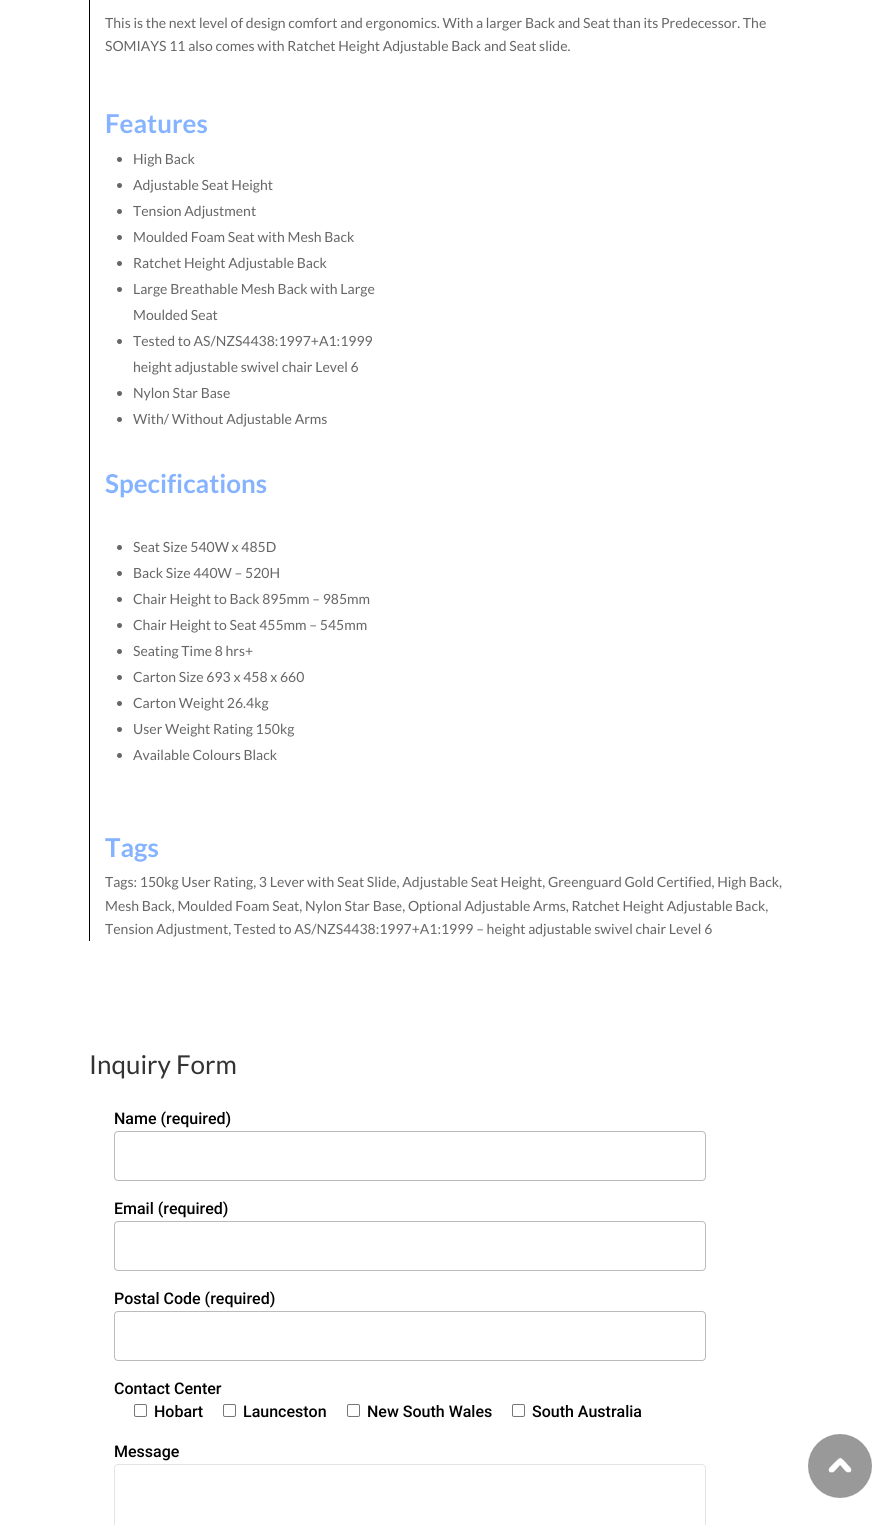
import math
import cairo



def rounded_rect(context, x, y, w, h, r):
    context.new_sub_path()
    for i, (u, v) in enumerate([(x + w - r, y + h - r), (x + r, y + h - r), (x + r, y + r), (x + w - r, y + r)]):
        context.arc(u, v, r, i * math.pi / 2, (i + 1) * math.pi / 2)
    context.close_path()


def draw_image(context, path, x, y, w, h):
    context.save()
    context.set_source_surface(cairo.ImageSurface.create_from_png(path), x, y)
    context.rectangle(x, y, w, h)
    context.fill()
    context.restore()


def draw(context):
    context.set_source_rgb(1, 1, 1)
    context.paint()
    context.set_source_rgb(0, 0, 0)
    context.rectangle(89, 0, 1, 941)
    context.fill()
    context.set_source_rgb(102 / 255, 102 / 255, 102 / 255)
    context.arc(119.5, 159.5, 2.5, 0, 2 * math.pi)
    context.fill()
    context.arc(119.5, 185.5, 2.5, 0, 2 * math.pi)
    context.fill()
    context.arc(119.5, 211.5, 2.5, 0, 2 * math.pi)
    context.fill()
    context.arc(119.5, 237.5, 2.5, 0, 2 * math.pi)
    context.fill()
    context.arc(119.5, 263.5, 2.5, 0, 2 * math.pi)
    context.fill()
    context.arc(119.5, 289.5, 2.5, 0, 2 * math.pi)
    context.fill()
    context.arc(119.5, 341.5, 2.5, 0, 2 * math.pi)
    context.fill()
    context.arc(119.5, 393.5, 2.5, 0, 2 * math.pi)
    context.fill()
    context.arc(119.5, 419.5, 2.5, 0, 2 * math.pi)
    context.fill()
    context.arc(119.5, 547.5, 2.5, 0, 2 * math.pi)
    context.fill()
    context.arc(119.5, 573.5, 2.5, 0, 2 * math.pi)
    context.fill()
    context.arc(119.5, 599.5, 2.5, 0, 2 * math.pi)
    context.fill()
    context.arc(119.5, 625.5, 2.5, 0, 2 * math.pi)
    context.fill()
    context.arc(119.5, 651.5, 2.5, 0, 2 * math.pi)
    context.fill()
    context.arc(119.5, 677.5, 2.5, 0, 2 * math.pi)
    context.fill()
    context.arc(119.5, 703.5, 2.5, 0, 2 * math.pi)
    context.fill()
    context.arc(119.5, 729.5, 2.5, 0, 2 * math.pi)
    context.fill()
    context.arc(119.5, 755.5, 2.5, 0, 2 * math.pi)
    context.fill()
    rounded_rect(context, 114.5, 1131.5, 591, 49, 3.5)
    context.set_source_rgb(187 / 255, 187 / 255, 187 / 255)
    context.set_line_width(1)
    context.stroke()
    rounded_rect(context, 114.5, 1221.5, 591, 49, 3.5)
    context.stroke()
    rounded_rect(context, 114.5, 1311.5, 591, 49, 3.5)
    context.stroke()
    rounded_rect(context, 134.5, 1404.5, 12, 12, 1.5)
    context.set_source_rgb(118 / 255, 118 / 255, 118 / 255)
    context.stroke()
    rounded_rect(context, 223.5, 1404.5, 12, 12, 1.5)
    context.stroke()
    rounded_rect(context, 347.5, 1404.5, 12, 12, 1.5)
    context.stroke()
    rounded_rect(context, 512.5, 1404.5, 12, 12, 1.5)
    context.stroke()
    rounded_rect(context, 114.5, 1464.5, 591, 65, 3.5)
    context.set_source_rgb(228 / 255, 228 / 255, 228 / 255)
    context.stroke()
    draw_image(context, "images/1.png", 808, 1434, 64, 64)
    context.select_font_face("Lato")
    context.set_font_size(14)
    context.set_source_rgb(102 / 255, 102 / 255, 102 / 255)
    context.move_to(105, 28)
    context.show_text("This is the next level of design comfort and ergonomics. With a larger Back and Seat than its Predecessor. The")
    context.move_to(105, 51)
    context.show_text("SOMIAYS 11 also comes with Ratchet Height Adjustable Back and Seat slide.")
    context.select_font_face("Lato", cairo.FontSlant.NORMAL, cairo.FontWeight.BOLD)
    context.set_font_size(26)
    context.set_source_rgb(134 / 255, 179 / 255, 1)
    context.move_to(105, 133)
    context.show_text("Features")
    context.select_font_face("Lato")
    context.set_font_size(14)
    context.set_source_rgb(102 / 255, 102 / 255, 102 / 255)
    context.move_to(133, 164)
    context.show_text("High Back")
    context.move_to(133, 190)
    context.show_text("Adjustable Seat Height")
    context.move_to(133, 216)
    context.show_text("Tension Adjustment")
    context.move_to(133, 242)
    context.show_text("Moulded Foam Seat with Mesh Back")
    context.move_to(133, 268)
    context.show_text("Ratchet Height Adjustable Back")
    context.move_to(133, 294)
    context.show_text("Large Breathable Mesh Back with Large")
    context.move_to(133, 320)
    context.show_text("Moulded Seat")
    context.move_to(133, 346)
    context.show_text("Tested to AS/NZS4438:1997+A1:1999")
    context.move_to(133, 372)
    context.show_text("height adjustable swivel chair Level 6")
    context.move_to(133, 398)
    context.show_text("Nylon Star Base")
    context.move_to(133, 424)
    context.show_text("With/ Without Adjustable Arms")
    context.select_font_face("Lato", cairo.FontSlant.NORMAL, cairo.FontWeight.BOLD)
    context.set_font_size(26)
    context.set_source_rgb(134 / 255, 179 / 255, 1)
    context.move_to(105, 493)
    context.show_text("Specifications")
    context.select_font_face("Lato")
    context.set_font_size(14)
    context.set_source_rgb(102 / 255, 102 / 255, 102 / 255)
    context.move_to(133, 552)
    context.show_text("Seat Size 540W x 485D")
    context.move_to(133, 578)
    context.show_text("Back Size 440W – 520H")
    context.move_to(133, 604)
    context.show_text("Chair Height to Back 895mm – 985mm")
    context.move_to(133, 630)
    context.show_text("Chair Height to Seat 455mm – 545mm")
    context.move_to(133, 656)
    context.show_text("Seating Time 8 hrs+")
    context.move_to(133, 682)
    context.show_text("Carton Size 693 x 458 x 660")
    context.move_to(133, 708)
    context.show_text("Carton Weight 26.4kg")
    context.move_to(133, 734)
    context.show_text("User Weight Rating 150kg")
    context.move_to(133, 760)
    context.show_text("Available Colours Black")
    context.select_font_face("Lato", cairo.FontSlant.NORMAL, cairo.FontWeight.BOLD)
    context.set_font_size(26)
    context.set_source_rgb(134 / 255, 179 / 255, 1)
    context.move_to(105, 857)
    context.show_text("Tags")
    context.select_font_face("Lato")
    context.set_font_size(14)
    context.set_source_rgb(102 / 255, 102 / 255, 102 / 255)
    context.move_to(105, 887)
    context.show_text("Tags: 150kg User Rating, 3 Lever with Seat Slide, Adjustable Seat Height, Greenguard Gold Certified, High Back,")
    context.move_to(105, 911)
    context.show_text("Mesh Back, Moulded Foam Seat, Nylon Star Base, Optional Adjustable Arms, Ratchet Height Adjustable Back,")
    context.move_to(105, 934)
    context.show_text("Tension Adjustment, Tested to AS/NZS4438:1997+A1:1999 – height adjustable swivel chair Level 6")
    context.set_font_size(26)
    context.set_source_rgb(51 / 255, 51 / 255, 51 / 255)
    context.move_to(89, 1074)
    context.show_text("Inquiry Form")
    context.select_font_face("Roboto Medium")
    context.set_font_size(16)
    context.set_source_rgb(0, 0, 0)
    context.move_to(114, 1124)
    context.show_text("Name (required)")
    context.move_to(114, 1214)
    context.show_text("Email (required)")
    context.move_to(114, 1304)
    context.show_text("Postal Code (required)")
    context.move_to(114, 1394)
    context.show_text("Contact Center")
    context.move_to(154, 1417)
    context.show_text("Hobart")
    context.move_to(243, 1417)
    context.show_text("Launceston")
    context.move_to(367, 1417)
    context.show_text("New South Wales")
    context.move_to(532, 1417)
    context.show_text("South Australia")
    context.move_to(114, 1457)
    context.show_text("Message")


surface = cairo.ImageSurface(cairo.Format.RGB24, 892, 1525)
context = cairo.Context(surface)
options = cairo.FontOptions()
options.set_hint_metrics(cairo.HintMetrics.OFF)
options.set_hint_style(cairo.HintStyle.NONE)
context.set_font_options(options)
context.set_miter_limit(4)
draw(context)
surface.write_to_png("out.png")
